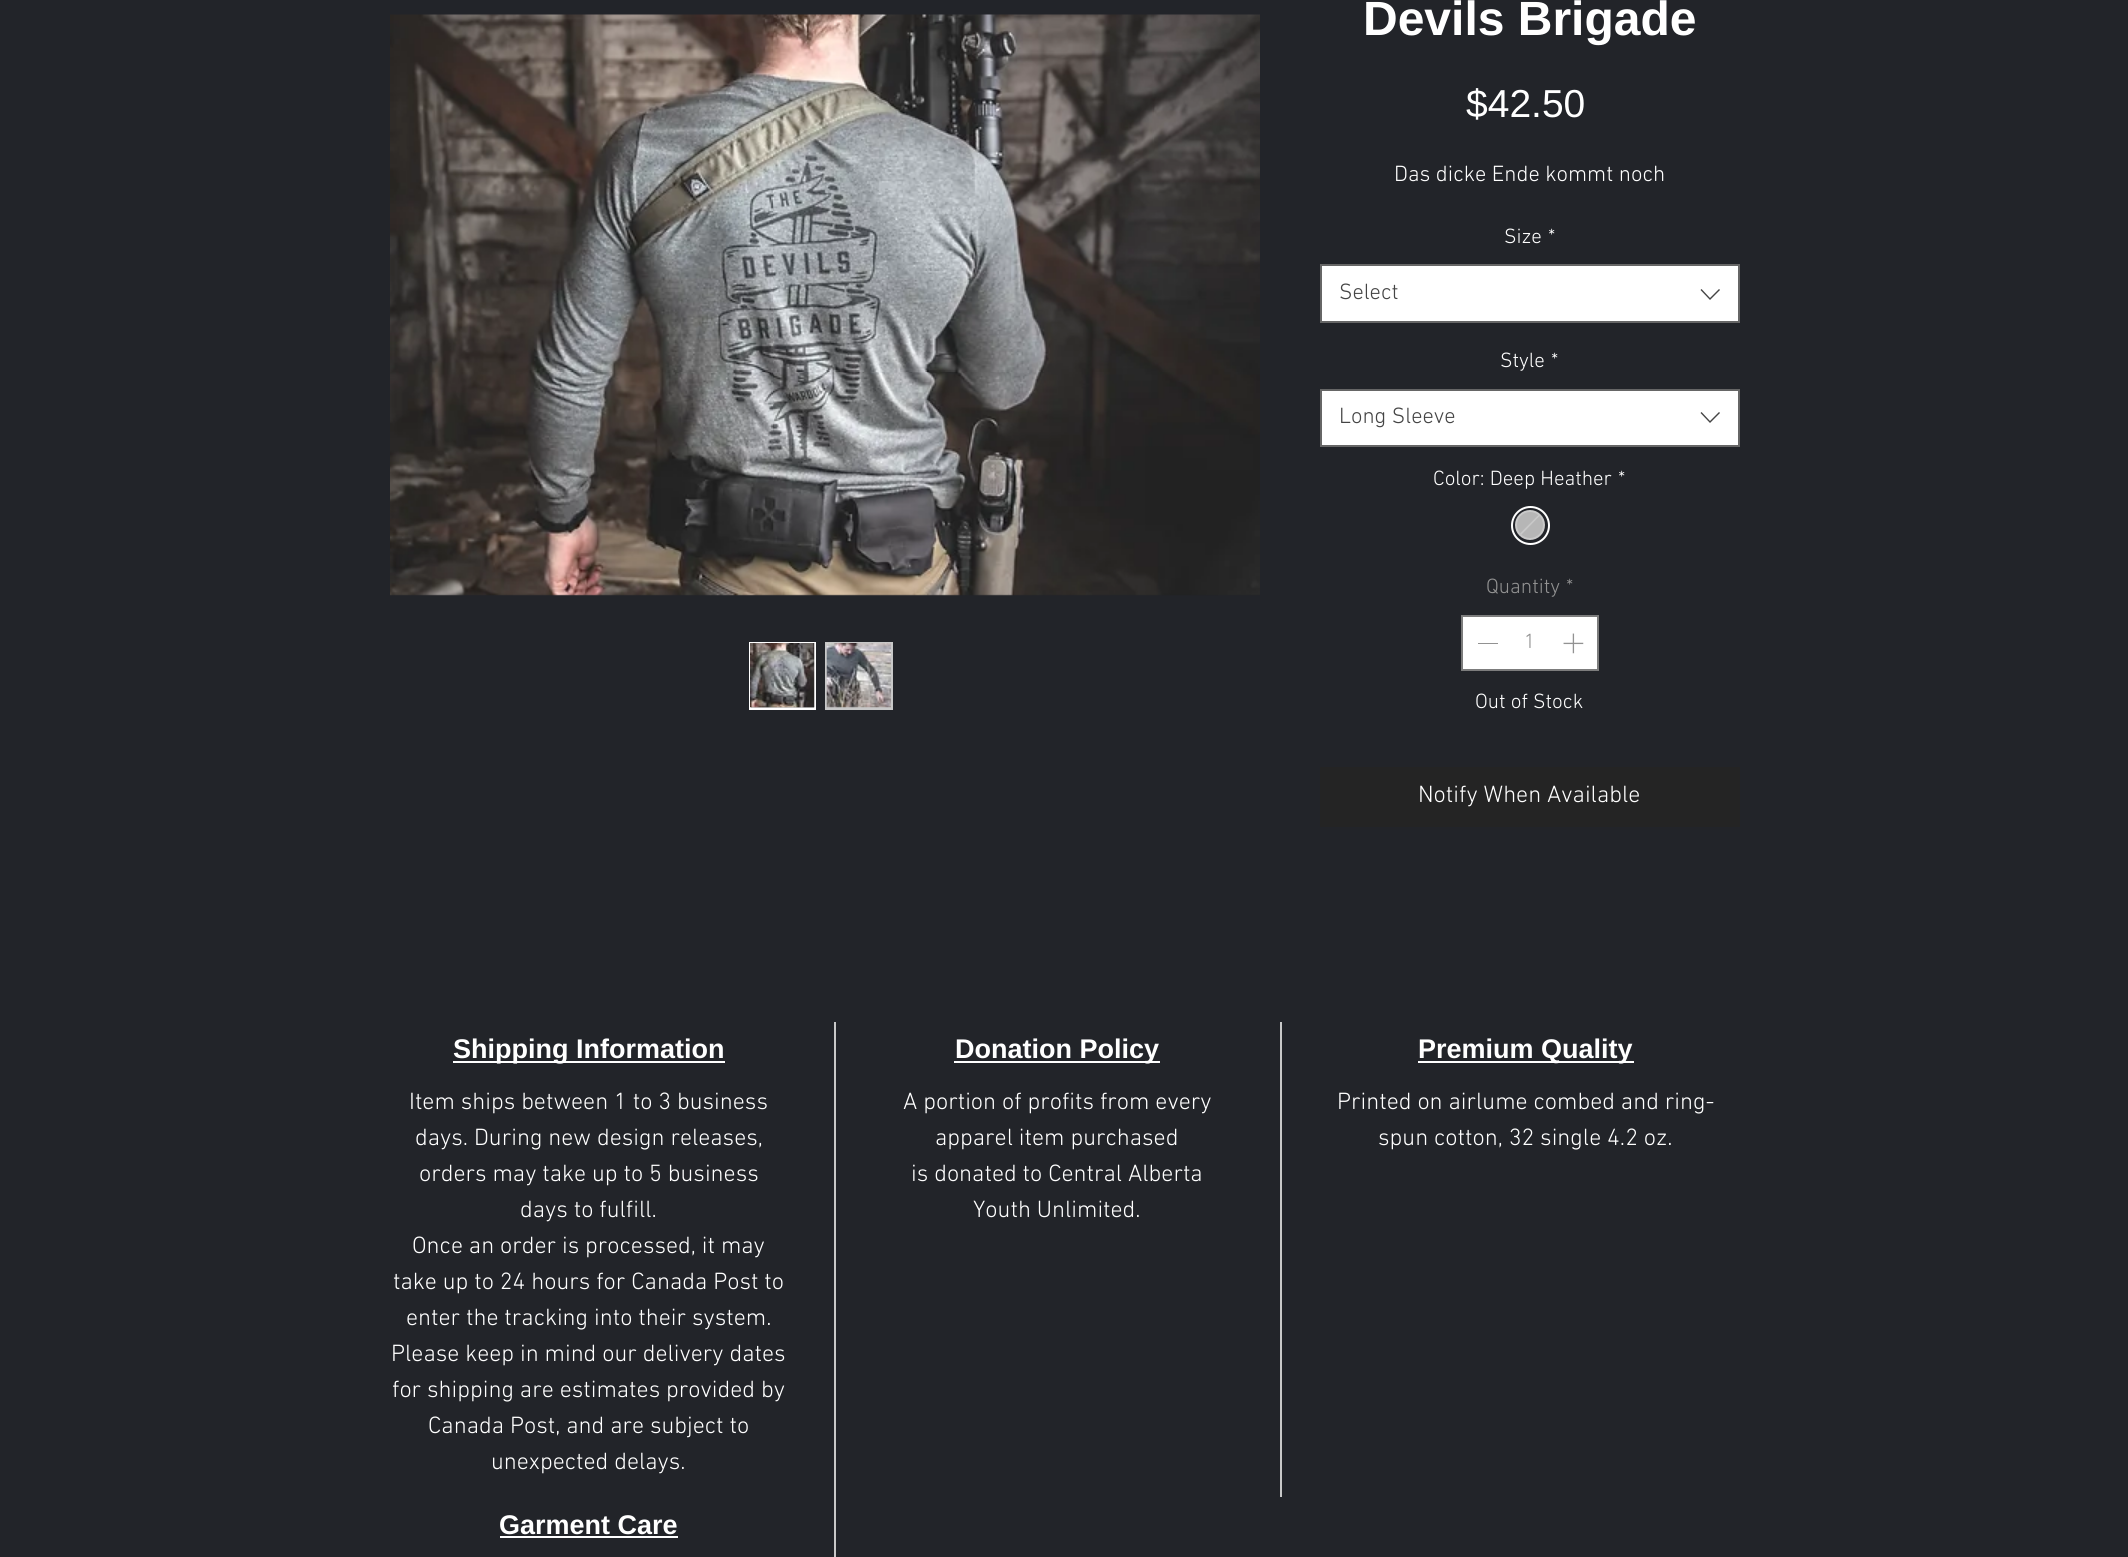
import math
import cairo



def draw_image(context, path, x, y, w, h):
    context.save()
    context.set_source_surface(cairo.ImageSurface.create_from_png(path), x, y)
    context.rectangle(x, y, w, h)
    context.fill()
    context.restore()


def draw(context):
    context.set_source_rgb(34 / 255, 36 / 255, 41 / 255)
    context.paint()
    draw_image(context, "images/1.png", 390, 14, 870, 582)
    context.set_source_rgb(200 / 255, 200 / 255, 200 / 255)
    context.rectangle(751, 707, 63, 1)
    context.fill()
    context.rectangle(750, 643, 65, 66)
    context.set_source_rgb(1, 1, 1)
    context.stroke()
    draw_image(context, "images/2.png", 750, 643, 65, 65)
    context.set_source_rgb(200 / 255, 200 / 255, 200 / 255)
    context.rectangle(825, 642, 68, 68)
    context.fill()
    draw_image(context, "images/3.png", 826, 643, 65, 65)
    context.set_source_rgb(1, 1, 1)
    context.rectangle(1321, 265, 418, 57)
    context.fill_preserve()
    context.set_source_rgb(102 / 255, 102 / 255, 102 / 255)
    context.stroke()
    context.set_source_rgb(68 / 255, 68 / 255, 68 / 255)
    context.set_fill_rule(cairo.FillRule.EVEN_ODD)
    context.new_path()
    context.move_to(1719, 289)
    context.line_to(1720, 290)
    context.line_to(1710, 300)
    context.line_to(1700.5, 290)
    context.line_to(1701.5, 289)
    context.line_to(1710, 298)
    context.close_path()
    context.fill()
    context.set_source_rgb(1, 1, 1)
    context.rectangle(1321, 390, 418, 56)
    context.fill_preserve()
    context.set_source_rgb(102 / 255, 102 / 255, 102 / 255)
    context.stroke()
    context.set_source_rgb(68 / 255, 68 / 255, 68 / 255)
    context.new_path()
    context.move_to(1719, 412)
    context.line_to(1720, 413)
    context.line_to(1710, 423)
    context.line_to(1700.5, 413)
    context.line_to(1701.5, 412)
    context.line_to(1710, 421)
    context.close_path()
    context.fill()
    context.arc(1530.5, 525.5, 18.5, 0, 2 * math.pi)
    context.set_source_rgb(1, 1, 1)
    context.stroke()
    context.set_source_rgb(182 / 255, 182 / 255, 182 / 255)
    context.arc(1530, 525, 14, 0, 2 * math.pi)
    context.fill_preserve()
    context.set_source_rgb(201 / 255, 201 / 255, 201 / 255)
    context.stroke()
    context.set_fill_rule(cairo.FillRule.WINDING)
    context.new_path()
    context.move_to(1540, 515.5)
    context.line_to(1521, 535)
    context.line_to(1520, 533.5)
    context.line_to(1538.5, 515)
    context.close_path()
    context.fill()
    context.set_source_rgb(1, 1, 1)
    context.rectangle(1462, 616, 136, 54)
    context.fill_preserve()
    context.set_source_rgb(124 / 255, 124 / 255, 124 / 255)
    context.stroke()
    context.set_source_rgb(146 / 255, 146 / 255, 146 / 255)
    context.rectangle(1478, 643, 20, 1)
    context.fill()
    draw_image(context, "images/4.png", 1563, 633, 21, 21)
    context.set_source_rgb(36 / 255, 36 / 255, 36 / 255)
    context.rectangle(1320, 767, 420, 60)
    context.fill()
    context.set_source_rgb(200 / 255, 200 / 255, 200 / 255)
    context.rectangle(834, 1022, 2, 535)
    context.fill()
    context.set_source_rgb(1, 1, 1)
    context.rectangle(453, 1061, 272, 2)
    context.fill()
    context.set_source_rgb(200 / 255, 200 / 255, 200 / 255)
    context.rectangle(1280, 1022, 2, 475)
    context.fill()
    context.set_source_rgb(1, 1, 1)
    context.rectangle(954, 1061, 206, 2)
    context.fill()
    context.rectangle(1418, 1061, 216, 2)
    context.fill()
    context.rectangle(500, 1536, 178, 2)
    context.fill()
    context.select_font_face("Liberation Sans", cairo.FontSlant.NORMAL, cairo.FontWeight.BOLD)
    context.set_font_size(48)
    context.move_to(1363, 35)
    context.show_text("Devils Brigade")
    context.select_font_face("Liberation Sans")
    context.set_font_size(39)
    context.move_to(1466, 117)
    context.show_text("$42.50")
    context.select_font_face("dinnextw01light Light")
    context.set_font_size(22.5)
    context.move_to(1394, 181)
    context.show_text("Das dicke Ende kommt noch")
    context.set_font_size(21)
    context.move_to(1504, 243)
    context.show_text("Size")
    context.move_to(1548, 243)
    context.show_text("*")
    context.set_font_size(22.5)
    context.set_source_rgb(68 / 255, 68 / 255, 68 / 255)
    context.move_to(1339, 299)
    context.show_text("Select")
    context.set_font_size(21)
    context.set_source_rgb(1, 1, 1)
    context.move_to(1500, 367)
    context.show_text("Style")
    context.move_to(1551, 367)
    context.show_text("*")
    context.set_font_size(22.5)
    context.set_source_rgb(68 / 255, 68 / 255, 68 / 255)
    context.move_to(1339, 423)
    context.show_text("Long Sleeve")
    context.set_font_size(21)
    context.set_source_rgb(1, 1, 1)
    context.move_to(1433, 485)
    context.show_text("Color: Deep Heather")
    context.move_to(1618, 485)
    context.show_text("*")
    context.set_source_rgb(146 / 255, 146 / 255, 146 / 255)
    context.move_to(1486, 593)
    context.show_text("Quantity")
    context.move_to(1566, 593)
    context.show_text("*")
    context.move_to(1524, 648)
    context.show_text("1")
    context.set_source_rgb(1, 1, 1)
    context.move_to(1475, 708)
    context.show_text("Out of Stock")
    context.set_font_size(24)
    context.move_to(1418, 802)
    context.show_text("Notify When Available")
    context.select_font_face("Liberation Sans", cairo.FontSlant.NORMAL, cairo.FontWeight.BOLD)
    context.set_font_size(27)
    context.move_to(453, 1058)
    context.show_text("Shipping Information")
    context.select_font_face("dinnextw01light Light")
    context.set_font_size(24)
    context.move_to(409, 1109)
    context.show_text("Item ships between 1 to 3 business")
    context.move_to(415, 1145)
    context.show_text("days. During new design releases,")
    context.move_to(419, 1181)
    context.show_text("orders may take up to 5 business")
    context.move_to(520, 1217)
    context.show_text("days to fulfill.")
    context.move_to(412, 1253)
    context.show_text("Once an order is processed, it may")
    context.move_to(393, 1289)
    context.show_text("take up to 24 hours for Canada Post to")
    context.move_to(406, 1325)
    context.show_text("enter the tracking into their system.")
    context.move_to(391, 1361)
    context.show_text("Please keep in mind our delivery dates")
    context.move_to(392, 1397)
    context.show_text("for shipping are estimates provided by")
    context.move_to(428, 1433)
    context.show_text("Canada Post, and are subject to")
    context.move_to(491, 1469)
    context.show_text("unexpected delays.")
    context.select_font_face("Liberation Sans", cairo.FontSlant.NORMAL, cairo.FontWeight.BOLD)
    context.set_font_size(27)
    context.move_to(955, 1058)
    context.show_text("Donation Policy")
    context.select_font_face("dinnextw01light Light")
    context.set_font_size(24)
    context.move_to(903, 1109)
    context.show_text("A portion of profits from every")
    context.move_to(935, 1145)
    context.show_text("apparel item purchased")
    context.move_to(911, 1181)
    context.show_text("is donated to Central Alberta")
    context.move_to(973, 1217)
    context.show_text("Youth Unlimited.")
    context.select_font_face("Liberation Sans", cairo.FontSlant.NORMAL, cairo.FontWeight.BOLD)
    context.set_font_size(27)
    context.move_to(1418, 1058)
    context.show_text("Premium Quality")
    context.select_font_face("dinnextw01light Light")
    context.set_font_size(24)
    context.move_to(1337, 1109)
    context.show_text("Printed on airlume combed and ring-")
    context.move_to(1378, 1145)
    context.show_text("spun cotton, 32 single 4.2 oz.")
    context.select_font_face("Liberation Sans", cairo.FontSlant.NORMAL, cairo.FontWeight.BOLD)
    context.set_font_size(27)
    context.move_to(499, 1534)
    context.show_text("Garment Care")


surface = cairo.ImageSurface(cairo.Format.RGB24, 2128, 1557)
context = cairo.Context(surface)
options = cairo.FontOptions()
options.set_hint_metrics(cairo.HintMetrics.OFF)
options.set_hint_style(cairo.HintStyle.NONE)
context.set_font_options(options)
context.set_miter_limit(4)
draw(context)
surface.write_to_png("out.png")
